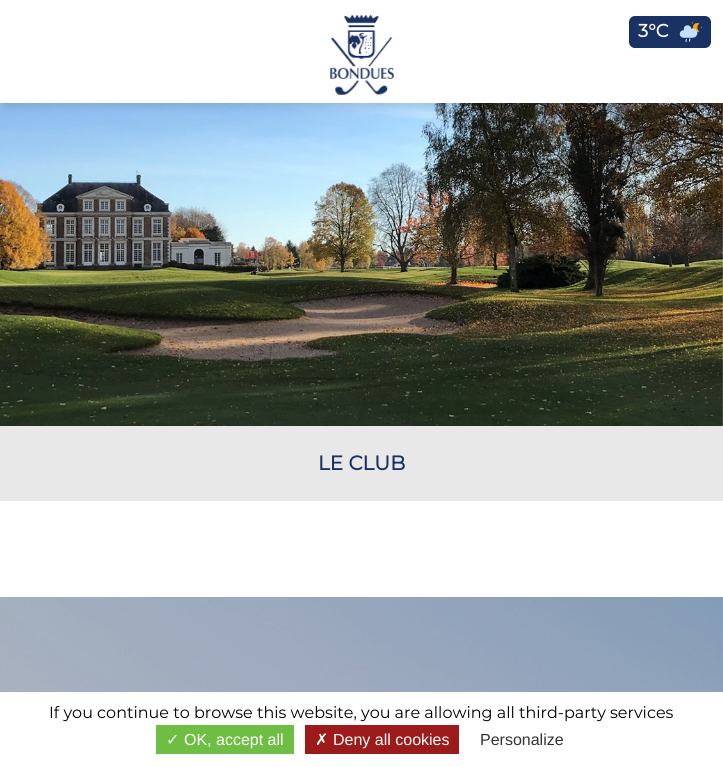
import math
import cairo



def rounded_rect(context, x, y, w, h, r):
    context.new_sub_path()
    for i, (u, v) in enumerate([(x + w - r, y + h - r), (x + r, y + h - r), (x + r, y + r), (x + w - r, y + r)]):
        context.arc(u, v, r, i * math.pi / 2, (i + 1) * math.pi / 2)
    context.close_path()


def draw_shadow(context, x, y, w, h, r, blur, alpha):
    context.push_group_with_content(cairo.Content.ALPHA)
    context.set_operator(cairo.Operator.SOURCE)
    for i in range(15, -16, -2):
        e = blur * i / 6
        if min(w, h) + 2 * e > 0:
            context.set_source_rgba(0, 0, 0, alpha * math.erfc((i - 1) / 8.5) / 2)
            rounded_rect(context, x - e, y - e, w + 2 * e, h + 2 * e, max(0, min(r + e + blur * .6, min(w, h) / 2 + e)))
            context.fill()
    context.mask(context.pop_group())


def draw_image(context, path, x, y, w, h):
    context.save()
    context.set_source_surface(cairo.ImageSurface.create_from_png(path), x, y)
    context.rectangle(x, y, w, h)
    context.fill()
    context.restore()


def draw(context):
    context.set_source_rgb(1, 1, 1)
    context.paint()
    draw_image(context, "images/3.png", 0, 103, 723, 323)
    context.set_source_rgb(0, 0, 0)
    draw_shadow(context, 4, 4, 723, 103, 0, 4.5, 0.12)
    context.set_source_rgb(1, 1, 1)
    context.rectangle(0, 0, 723, 103)
    context.fill()
    draw_image(context, "images/1.png", 329, 15, 65, 80)
    context.set_source_rgb(25 / 255, 49 / 255, 99 / 255)
    rounded_rect(context, 629, 16, 82, 32, 6)
    context.fill()
    draw_image(context, "images/2.png", 679, 22, 23, 21)
    context.set_source_rgb(232 / 255, 232 / 255, 232 / 255)
    context.rectangle(0, 426, 723, 75)
    context.fill()
    draw_image(context, "images/4.png", 0, 597, 723, 95)
    context.set_source_rgb(110 / 255, 190 / 255, 68 / 255)
    context.rectangle(156, 725, 138, 29)
    context.fill()
    context.set_source_rgb(156 / 255, 26 / 255, 26 / 255)
    context.rectangle(305, 725, 154, 29)
    context.fill()
    context.select_font_face("Montserrat", cairo.FontSlant.NORMAL, cairo.FontWeight.BOLD)
    context.set_font_size(18)
    context.set_source_rgb(1, 1, 1)
    context.move_to(638, 37)
    context.show_text("3°C")
    context.set_font_size(20)
    context.set_source_rgb(25 / 255, 49 / 255, 99 / 255)
    context.move_to(318, 470)
    context.show_text("LE CLUB")
    context.select_font_face("Montserrat Thin")
    context.set_font_size(16)
    context.set_source_rgb(0, 0, 0)
    context.move_to(49, 718)
    context.show_text("If you continue to browse this website, you are allowing all third-party services")
    context.select_font_face("DejaVu Sans")
    context.set_source_rgb(1, 1, 1)
    context.move_to(166, 745)
    context.show_text("✓")
    context.select_font_face("Liberation Sans")
    context.move_to(184, 745)
    context.show_text("OK, accept all")
    context.select_font_face("DejaVu Sans")
    context.move_to(315, 745)
    context.show_text("✗")
    context.select_font_face("Liberation Sans")
    context.move_to(333, 745)
    context.show_text("Deny all cookies")
    context.set_source_rgb(51 / 255, 51 / 255, 51 / 255)
    context.move_to(480, 745)
    context.show_text("Personalize")


surface = cairo.ImageSurface(cairo.Format.RGB24, 723, 767)
context = cairo.Context(surface)
options = cairo.FontOptions()
options.set_hint_metrics(cairo.HintMetrics.OFF)
options.set_hint_style(cairo.HintStyle.NONE)
context.set_font_options(options)
context.set_miter_limit(4)
draw(context)
surface.write_to_png("out.png")
